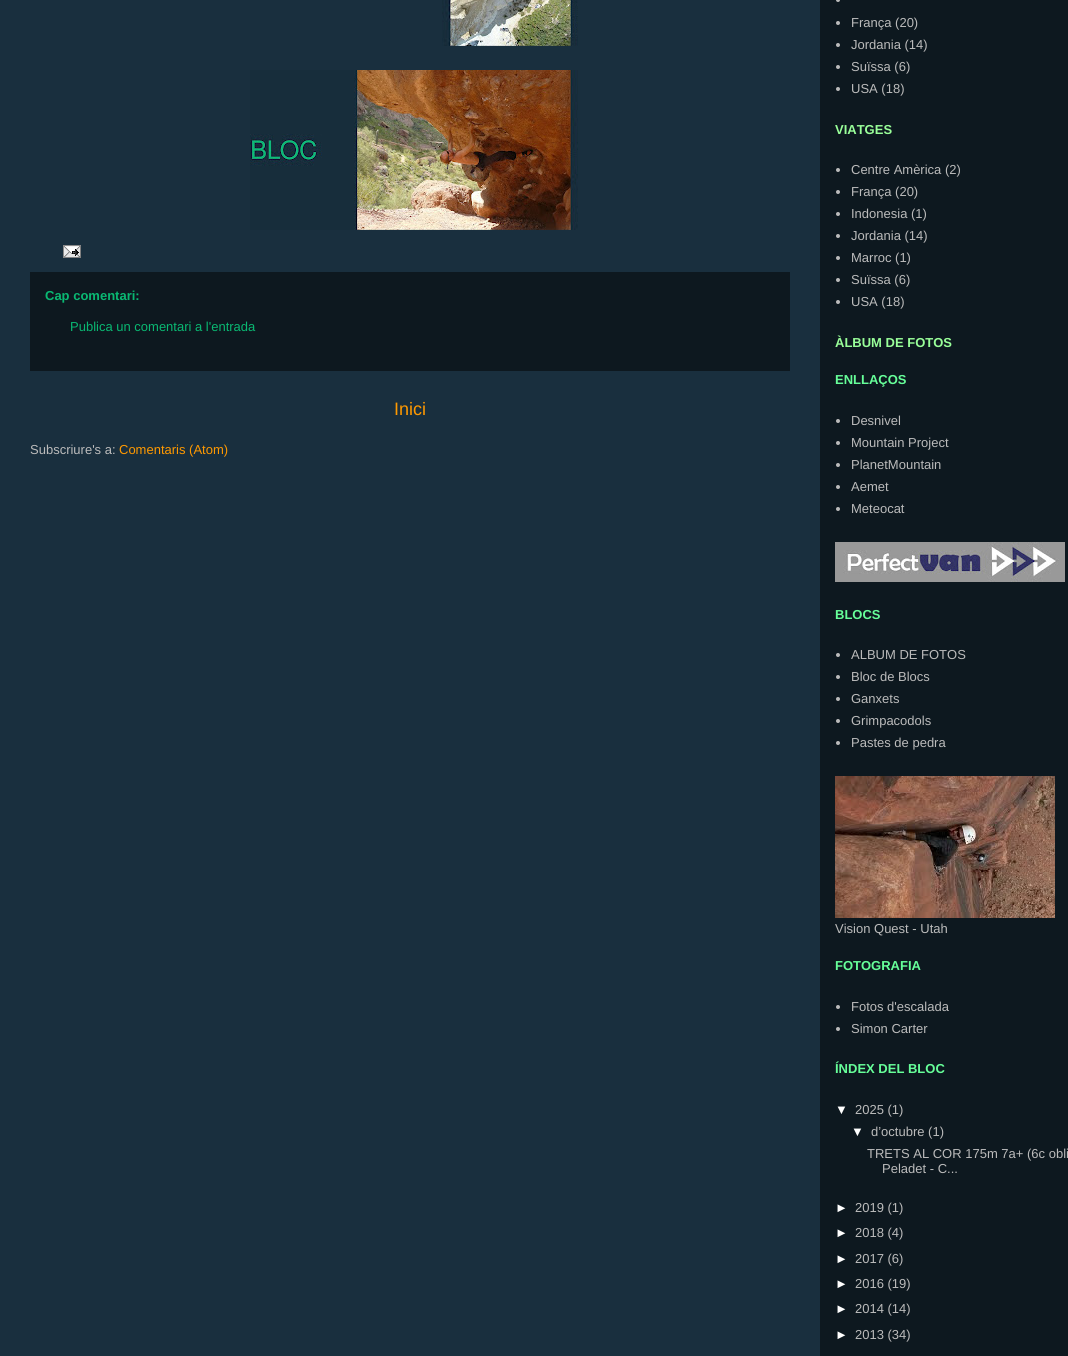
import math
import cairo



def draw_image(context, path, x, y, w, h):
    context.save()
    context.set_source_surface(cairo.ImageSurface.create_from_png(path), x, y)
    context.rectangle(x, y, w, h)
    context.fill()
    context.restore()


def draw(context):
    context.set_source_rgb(25 / 255, 47 / 255, 62 / 255)
    context.paint()
    context.set_source_rgb(13 / 255, 24 / 255, 31 / 255)
    context.rectangle(820, 0, 248, 1356)
    context.fill()
    draw_image(context, "images/1.png", 442, 0, 136, 46)
    draw_image(context, "images/2.png", 250, 70, 328, 160)
    draw_image(context, "images/3.png", 63, 245, 18, 13)
    context.rectangle(30, 272, 760, 99)
    context.fill()
    context.set_source_rgb(187 / 255, 187 / 255, 187 / 255)
    context.arc(838, 0, 2, 0, 2 * math.pi)
    context.fill()
    context.arc(838, 23, 2, 0, 2 * math.pi)
    context.fill()
    context.arc(838, 45, 2, 0, 2 * math.pi)
    context.fill()
    context.arc(838, 67, 2, 0, 2 * math.pi)
    context.fill()
    context.arc(838, 89, 2, 0, 2 * math.pi)
    context.fill()
    context.arc(838, 170, 2, 0, 2 * math.pi)
    context.fill()
    context.arc(838, 192, 2, 0, 2 * math.pi)
    context.fill()
    context.arc(838, 214, 2, 0, 2 * math.pi)
    context.fill()
    context.arc(838, 236, 2, 0, 2 * math.pi)
    context.fill()
    context.arc(838, 258, 2, 0, 2 * math.pi)
    context.fill()
    context.arc(838, 280, 2, 0, 2 * math.pi)
    context.fill()
    context.arc(838, 302, 2, 0, 2 * math.pi)
    context.fill()
    context.arc(838, 421, 2, 0, 2 * math.pi)
    context.fill()
    context.arc(838, 443, 2, 0, 2 * math.pi)
    context.fill()
    context.arc(838, 465, 2, 0, 2 * math.pi)
    context.fill()
    context.arc(838, 487, 2, 0, 2 * math.pi)
    context.fill()
    context.arc(838, 509, 2, 0, 2 * math.pi)
    context.fill()
    draw_image(context, "images/4.png", 835, 542, 230, 40)
    context.arc(838, 655, 2, 0, 2 * math.pi)
    context.fill()
    context.arc(838, 677, 2, 0, 2 * math.pi)
    context.fill()
    context.arc(838, 699, 2, 0, 2 * math.pi)
    context.fill()
    context.arc(838, 721, 2, 0, 2 * math.pi)
    context.fill()
    context.arc(838, 743, 2, 0, 2 * math.pi)
    context.fill()
    draw_image(context, "images/5.png", 835, 776, 220, 142)
    context.arc(838, 1007, 2, 0, 2 * math.pi)
    context.fill()
    context.arc(838, 1029, 2, 0, 2 * math.pi)
    context.fill()
    context.select_font_face("Liberation Sans", cairo.FontSlant.NORMAL, cairo.FontWeight.BOLD)
    context.set_font_size(13)
    context.set_source_rgb(9 / 255, 184 / 255, 114 / 255)
    context.move_to(45, 300)
    context.show_text("Cap comentari:")
    context.select_font_face("Liberation Sans")
    context.move_to(70, 331)
    context.show_text("Publica un comentari a l'entrada")
    context.set_font_size(18)
    context.set_source_rgb(1, 153 / 255, 0)
    context.move_to(394, 415)
    context.show_text("Inici")
    context.set_font_size(13)
    context.set_source_rgb(187 / 255, 187 / 255, 187 / 255)
    context.move_to(30, 454)
    context.show_text("Subscriure's a:")
    context.set_source_rgb(1, 153 / 255, 0)
    context.move_to(119, 454)
    context.show_text("Comentaris (Atom)")
    context.set_source_rgb(187 / 255, 187 / 255, 187 / 255)
    context.move_to(851, 27)
    context.show_text("França (20)")
    context.move_to(851, 49)
    context.show_text("Jordania (14)")
    context.move_to(851, 71)
    context.show_text("Suïssa (6)")
    context.move_to(851, 93)
    context.show_text("USA (18)")
    context.select_font_face("Liberation Sans", cairo.FontSlant.NORMAL, cairo.FontWeight.BOLD)
    context.set_source_rgb(153 / 255, 1, 153 / 255)
    context.move_to(835, 134)
    context.show_text("VIATGES")
    context.select_font_face("Liberation Sans")
    context.set_source_rgb(187 / 255, 187 / 255, 187 / 255)
    context.move_to(851, 174)
    context.show_text("Centre Amèrica (2)")
    context.move_to(851, 196)
    context.show_text("França (20)")
    context.move_to(851, 218)
    context.show_text("Indonesia (1)")
    context.move_to(851, 240)
    context.show_text("Jordania (14)")
    context.move_to(851, 262)
    context.show_text("Marroc (1)")
    context.move_to(851, 284)
    context.show_text("Suïssa (6)")
    context.move_to(851, 306)
    context.show_text("USA (18)")
    context.select_font_face("Liberation Sans", cairo.FontSlant.NORMAL, cairo.FontWeight.BOLD)
    context.set_source_rgb(153 / 255, 1, 153 / 255)
    context.move_to(835, 347)
    context.show_text("ÀLBUM DE FOTOS")
    context.set_source_rgb(102 / 255, 1, 153 / 255)
    context.move_to(835, 384)
    context.show_text("ENLLAÇOS")
    context.select_font_face("Liberation Sans")
    context.set_source_rgb(187 / 255, 187 / 255, 187 / 255)
    context.move_to(851, 425)
    context.show_text("Desnivel")
    context.move_to(851, 447)
    context.show_text("Mountain Project")
    context.move_to(851, 469)
    context.show_text("PlanetMountain")
    context.move_to(851, 491)
    context.show_text("Aemet")
    context.move_to(851, 513)
    context.show_text("Meteocat")
    context.select_font_face("Liberation Sans", cairo.FontSlant.NORMAL, cairo.FontWeight.BOLD)
    context.set_source_rgb(102 / 255, 1, 153 / 255)
    context.move_to(835, 619)
    context.show_text("BLOCS")
    context.select_font_face("Liberation Sans")
    context.set_source_rgb(187 / 255, 187 / 255, 187 / 255)
    context.move_to(851, 659)
    context.show_text("ALBUM DE FOTOS")
    context.move_to(851, 681)
    context.show_text("Bloc de Blocs")
    context.move_to(851, 703)
    context.show_text("Ganxets")
    context.move_to(851, 725)
    context.show_text("Grimpacodols")
    context.move_to(851, 747)
    context.show_text("Pastes de pedra")
    context.move_to(835, 933)
    context.show_text("Vision Quest - Utah")
    context.select_font_face("Liberation Sans", cairo.FontSlant.NORMAL, cairo.FontWeight.BOLD)
    context.set_source_rgb(102 / 255, 1, 153 / 255)
    context.move_to(835, 970)
    context.show_text("FOTOGRAFIA")
    context.select_font_face("Liberation Sans")
    context.set_source_rgb(187 / 255, 187 / 255, 187 / 255)
    context.move_to(851, 1011)
    context.show_text("Fotos d'escalada")
    context.move_to(851, 1033)
    context.show_text("Simon Carter")
    context.select_font_face("Liberation Sans", cairo.FontSlant.NORMAL, cairo.FontWeight.BOLD)
    context.set_source_rgb(102 / 255, 1, 153 / 255)
    context.move_to(835, 1073)
    context.show_text("ÍNDEX DEL BLOC")
    context.select_font_face("Liberation Sans")
    context.set_source_rgb(1, 1, 1)
    context.move_to(835, 1114)
    context.show_text("▼")
    context.set_source_rgb(187 / 255, 187 / 255, 187 / 255)
    context.move_to(855, 1114)
    context.show_text("2025 (1)")
    context.set_source_rgb(1, 1, 1)
    context.move_to(851, 1136)
    context.show_text("▼")
    context.set_source_rgb(187 / 255, 187 / 255, 187 / 255)
    context.move_to(871, 1136)
    context.show_text("d’octubre (1)")
    context.move_to(867, 1158)
    context.show_text("TRETS AL COR 175m 7a+ (6c obli")
    context.move_to(882, 1173)
    context.show_text("Peladet - C...")
    context.set_source_rgb(1, 1, 1)
    context.move_to(835, 1212)
    context.show_text("►")
    context.set_source_rgb(187 / 255, 187 / 255, 187 / 255)
    context.move_to(855, 1212)
    context.show_text("2019 (1)")
    context.set_source_rgb(1, 1, 1)
    context.move_to(835, 1237)
    context.show_text("►")
    context.set_source_rgb(187 / 255, 187 / 255, 187 / 255)
    context.move_to(855, 1237)
    context.show_text("2018 (4)")
    context.set_source_rgb(1, 1, 1)
    context.move_to(835, 1263)
    context.show_text("►")
    context.set_source_rgb(187 / 255, 187 / 255, 187 / 255)
    context.move_to(855, 1263)
    context.show_text("2017 (6)")
    context.set_source_rgb(1, 1, 1)
    context.move_to(835, 1288)
    context.show_text("►")
    context.set_source_rgb(187 / 255, 187 / 255, 187 / 255)
    context.move_to(855, 1288)
    context.show_text("2016 (19)")
    context.set_source_rgb(1, 1, 1)
    context.move_to(835, 1313)
    context.show_text("►")
    context.set_source_rgb(187 / 255, 187 / 255, 187 / 255)
    context.move_to(855, 1313)
    context.show_text("2014 (14)")
    context.set_source_rgb(1, 1, 1)
    context.move_to(835, 1339)
    context.show_text("►")
    context.set_source_rgb(187 / 255, 187 / 255, 187 / 255)
    context.move_to(855, 1339)
    context.show_text("2013 (34)")


surface = cairo.ImageSurface(cairo.Format.RGB24, 1068, 1356)
context = cairo.Context(surface)
options = cairo.FontOptions()
options.set_hint_metrics(cairo.HintMetrics.OFF)
options.set_hint_style(cairo.HintStyle.NONE)
context.set_font_options(options)
context.set_miter_limit(4)
draw(context)
surface.write_to_png("out.png")
